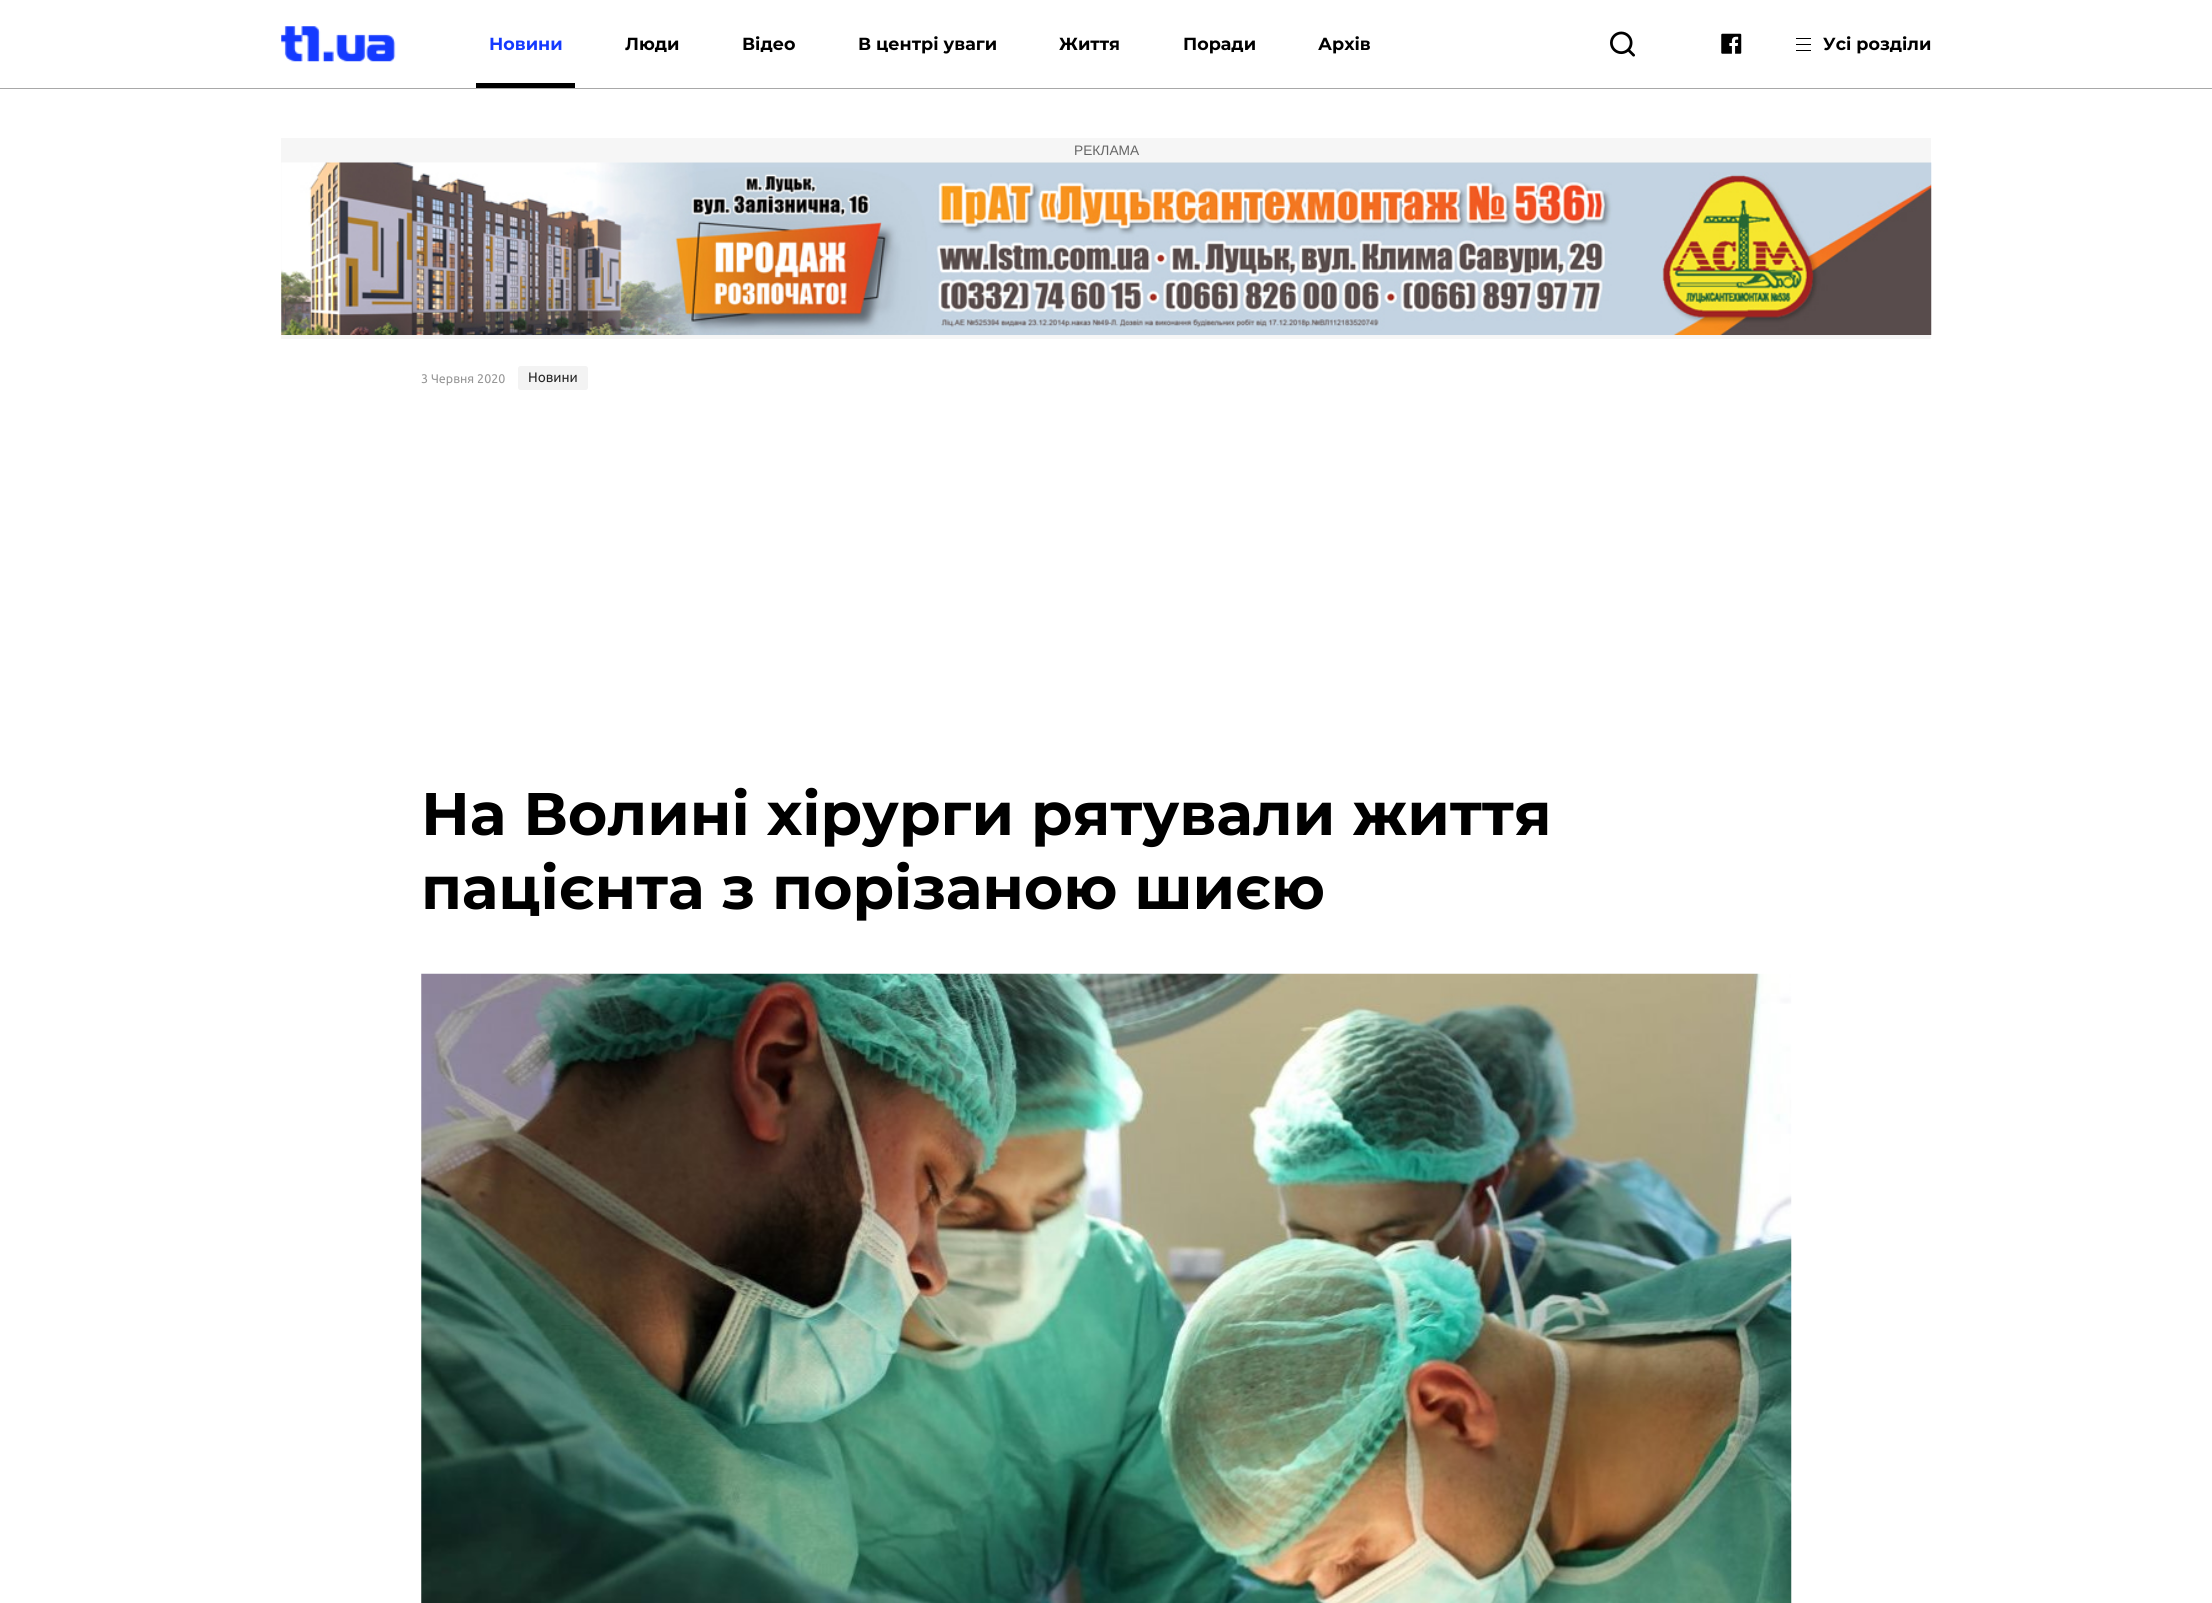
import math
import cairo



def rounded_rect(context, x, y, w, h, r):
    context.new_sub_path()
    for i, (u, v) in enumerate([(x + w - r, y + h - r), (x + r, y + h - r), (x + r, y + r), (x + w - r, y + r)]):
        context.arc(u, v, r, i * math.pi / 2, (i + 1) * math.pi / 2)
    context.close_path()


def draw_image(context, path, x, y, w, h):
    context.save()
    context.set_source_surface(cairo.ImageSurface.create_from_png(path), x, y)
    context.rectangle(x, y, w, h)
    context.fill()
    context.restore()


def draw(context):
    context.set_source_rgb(1, 1, 1)
    context.paint()
    context.set_source_rgb(168 / 255, 168 / 255, 168 / 255)
    context.new_path()
    context.move_to(0, 88)
    context.line_to(0, 89)
    context.line_to(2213, 89)
    context.line_to(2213, 1)
    context.line_to(2212, 1)
    context.line_to(2212, 88)
    context.close_path()
    context.fill()
    draw_image(context, "images/1.png", 281, 26, 115, 36)
    context.set_source_rgb(0, 0, 0)
    context.rectangle(476, 83, 99, 5)
    context.fill()
    draw_image(context, "images/2.png", 1610, 31, 25, 26)
    draw_image(context, "images/3.png", 1721, 33, 21, 21)
    context.rectangle(1796, 38, 15, 1)
    context.fill()
    context.rectangle(1796, 44, 15, 1)
    context.fill()
    context.rectangle(1796, 50, 15, 1)
    context.fill()
    context.set_source_rgb(246 / 255, 246 / 255, 246 / 255)
    context.rectangle(281, 138, 1650, 201)
    context.fill()
    draw_image(context, "images/4.png", 281, 162, 1651, 173)
    context.set_source_rgb(243 / 255, 243 / 255, 243 / 255)
    rounded_rect(context, 518, 366, 70, 24, 2.5)
    context.fill()
    draw_image(context, "images/5.png", 421, 973, 1371, 630)
    context.select_font_face("Montserrat", cairo.FontSlant.NORMAL, cairo.FontWeight.BOLD)
    context.set_font_size(17.5)
    context.set_source_rgb(20 / 255, 58 / 255, 1)
    context.move_to(489, 50)
    context.show_text("Новини")
    context.set_source_rgb(0, 0, 0)
    context.move_to(625, 50)
    context.show_text("Люди")
    context.move_to(742, 50)
    context.show_text("Відео")
    context.move_to(858, 50)
    context.show_text("В центрі уваги")
    context.move_to(1059, 50)
    context.show_text("Життя")
    context.move_to(1183, 50)
    context.show_text("Поради")
    context.move_to(1318, 50)
    context.show_text("Архів")
    context.move_to(1823, 50)
    context.show_text("Усі розділи")
    context.select_font_face("Liberation Sans")
    context.set_font_size(13.75)
    context.set_source_rgb(102 / 255, 102 / 255, 102 / 255)
    context.move_to(1074, 155)
    context.show_text("РЕКЛАМА")
    context.select_font_face("Ubuntu")
    context.set_font_size(12.5)
    context.set_source_rgb(150 / 255, 150 / 255, 150 / 255)
    context.move_to(421, 383)
    context.show_text("3 Червня 2020")
    context.set_font_size(13.75)
    context.set_source_rgb(37 / 255, 37 / 255, 37 / 255)
    context.move_to(528, 382)
    context.show_text("Новини")
    context.select_font_face("Montserrat", cairo.FontSlant.NORMAL, cairo.FontWeight.BOLD)
    context.set_font_size(60)
    context.set_source_rgb(0, 0, 0)
    context.move_to(421, 835)
    context.show_text("На Волині хірурги рятували життя")
    context.move_to(421, 909)
    context.show_text("пацієнта з порізаною шиєю")


surface = cairo.ImageSurface(cairo.Format.RGB24, 2212, 1603)
context = cairo.Context(surface)
options = cairo.FontOptions()
options.set_hint_metrics(cairo.HintMetrics.OFF)
options.set_hint_style(cairo.HintStyle.NONE)
context.set_font_options(options)
context.set_miter_limit(4)
draw(context)
surface.write_to_png("out.png")
